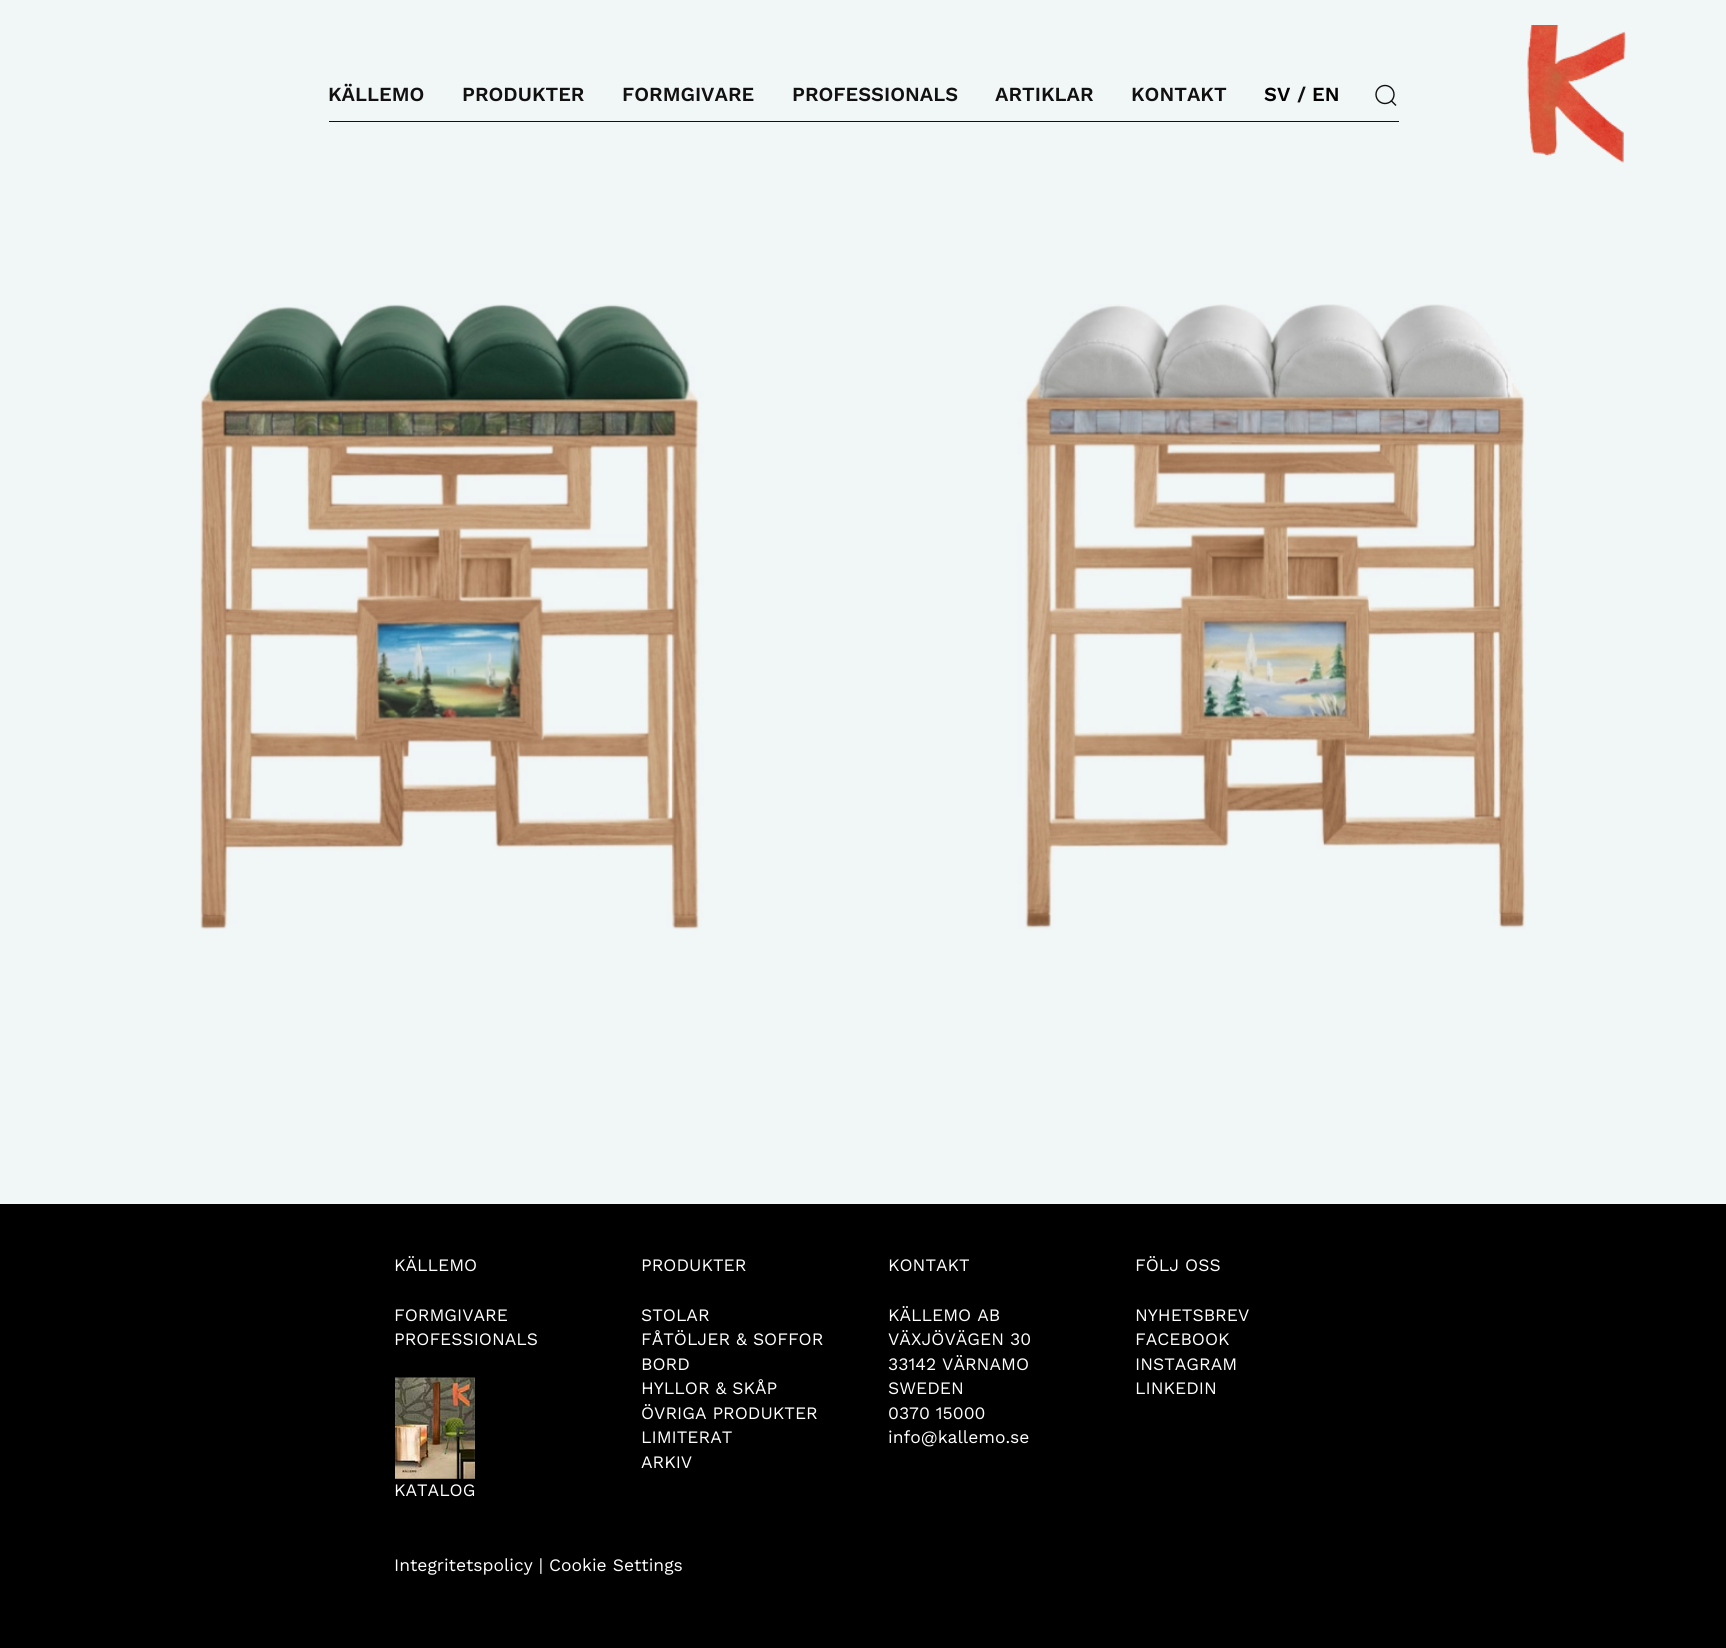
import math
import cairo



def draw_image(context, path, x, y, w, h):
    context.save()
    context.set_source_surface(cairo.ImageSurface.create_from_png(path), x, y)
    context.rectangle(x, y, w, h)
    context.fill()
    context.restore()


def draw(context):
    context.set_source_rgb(241 / 255, 246 / 255, 247 / 255)
    context.paint()
    context.set_source_rgb(17 / 255, 17 / 255, 17 / 255)
    context.rectangle(329, 121, 1070, 1)
    context.fill()
    context.arc(1385, 94.5, 9, 0, 2 * math.pi)
    context.set_line_width(1.4)
    context.stroke()
    context.new_path()
    context.move_to(1391, 100.5)
    context.line_to(1396, 105.5)
    context.close_path()
    context.stroke()
    draw_image(context, "images/1.png", 1527, 25, 99, 138)
    draw_image(context, "images/2.png", 200, 304, 1326, 626)
    context.set_source_rgb(0, 0, 0)
    context.rectangle(0, 1204, 1726, 444)
    context.fill()
    draw_image(context, "images/3.png", 395, 1377, 80, 102)
    context.select_font_face("Work Sans SemiBold")
    context.set_font_size(20)
    context.set_source_rgb(17 / 255, 17 / 255, 17 / 255)
    context.move_to(328, 101)
    context.show_text("KÄLLEMO")
    context.move_to(462, 101)
    context.show_text("PRODUKTER")
    context.move_to(622, 101)
    context.show_text("FORMGIVARE")
    context.move_to(792, 101)
    context.show_text("PROFESSIONALS")
    context.move_to(995, 101)
    context.show_text("ARTIKLAR")
    context.move_to(1131, 101)
    context.show_text("KONTAKT")
    context.set_source_rgb(0, 0, 0)
    context.move_to(1264, 101)
    context.show_text("SV")
    context.set_source_rgb(17 / 255, 17 / 255, 17 / 255)
    context.move_to(1297, 101)
    context.show_text("/")
    context.set_source_rgb(0, 0, 0)
    context.move_to(1312, 101)
    context.show_text("EN")
    context.select_font_face("Work Sans")
    context.set_font_size(17.5)
    context.set_source_rgb(1, 1, 1)
    context.move_to(394, 1271)
    context.show_text("KÄLLEMO")
    context.move_to(394, 1321)
    context.show_text("FORMGIVARE")
    context.move_to(394, 1345)
    context.show_text("PROFESSIONALS")
    context.move_to(394, 1496)
    context.show_text("KATALOG")
    context.move_to(641, 1271)
    context.show_text("PRODUKTER")
    context.move_to(641, 1321)
    context.show_text("STOLAR")
    context.move_to(641, 1345)
    context.show_text("FÅTÖLJER & SOFFOR")
    context.move_to(641, 1370)
    context.show_text("BORD")
    context.move_to(641, 1394)
    context.show_text("HYLLOR & SKÅP")
    context.move_to(641, 1419)
    context.show_text("ÖVRIGA PRODUKTER")
    context.move_to(641, 1443)
    context.show_text("LIMITERAT")
    context.move_to(641, 1468)
    context.show_text("ARKIV")
    context.move_to(888, 1271)
    context.show_text("KONTAKT")
    context.move_to(888, 1321)
    context.show_text("KÄLLEMO AB")
    context.move_to(888, 1345)
    context.show_text("VÄXJÖVÄGEN 30")
    context.move_to(888, 1370)
    context.show_text("33142 VÄRNAMO")
    context.move_to(888, 1394)
    context.show_text("SWEDEN")
    context.move_to(888, 1419)
    context.show_text("0370 15000")
    context.move_to(888, 1443)
    context.show_text("info@kallemo.se")
    context.move_to(1135, 1271)
    context.show_text("FÖLJ OSS")
    context.move_to(1135, 1321)
    context.show_text("NYHETSBREV")
    context.move_to(1135, 1345)
    context.show_text("FACEBOOK")
    context.move_to(1135, 1370)
    context.show_text("INSTAGRAM")
    context.move_to(1135, 1394)
    context.show_text("LINKEDIN")
    context.move_to(394, 1571)
    context.show_text("Integritetspolicy | Cookie Settings")


surface = cairo.ImageSurface(cairo.Format.RGB24, 1726, 1648)
context = cairo.Context(surface)
options = cairo.FontOptions()
options.set_hint_metrics(cairo.HintMetrics.OFF)
options.set_hint_style(cairo.HintStyle.NONE)
context.set_font_options(options)
context.set_miter_limit(4)
draw(context)
surface.write_to_png("out.png")
